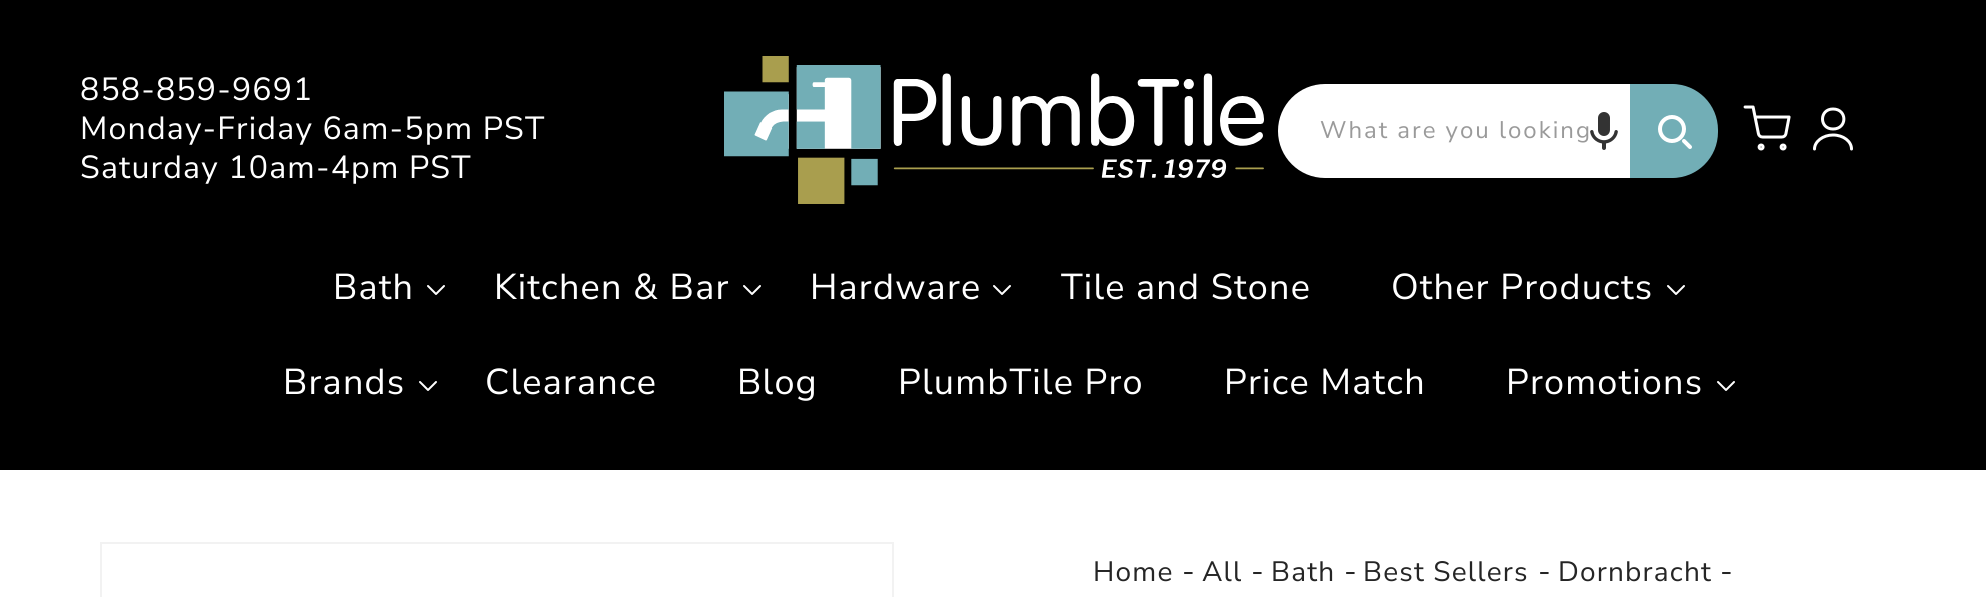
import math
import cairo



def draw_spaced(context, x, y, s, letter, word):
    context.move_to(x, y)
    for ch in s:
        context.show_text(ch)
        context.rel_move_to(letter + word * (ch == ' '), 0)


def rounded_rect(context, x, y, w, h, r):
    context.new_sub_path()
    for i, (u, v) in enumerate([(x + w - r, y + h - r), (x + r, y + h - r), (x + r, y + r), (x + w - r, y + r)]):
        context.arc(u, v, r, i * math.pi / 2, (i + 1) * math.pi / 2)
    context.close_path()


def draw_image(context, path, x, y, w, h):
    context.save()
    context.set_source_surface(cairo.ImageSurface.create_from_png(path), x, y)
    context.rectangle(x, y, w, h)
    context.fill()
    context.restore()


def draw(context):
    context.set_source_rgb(1, 1, 1)
    context.paint()
    context.set_source_rgb(0, 0, 0)
    context.rectangle(0, 0, 1986, 470)
    context.fill()
    draw_image(context, "images/1.png", 724, 56, 540, 148)
    context.set_source_rgb(1, 1, 1)
    rounded_rect(context, 1278, 84, 436, 94, 47)
    context.fill()
    draw_image(context, "images/2.png", 1590, 112, 28, 38)
    context.set_source_rgb(114 / 255, 174 / 255, 182 / 255)
    context.new_path()
    context.move_to(1630, 84)
    context.line_to(1672, 84)
    context.curve_to(1697.5, 84, 1718, 104.5, 1718, 130)
    context.line_to(1718, 132)
    context.curve_to(1718, 157.5, 1697.5, 178, 1672, 178)
    context.line_to(1630, 178)
    context.close_path()
    context.fill()
    context.arc(1672, 129, 12, 0, 2 * math.pi)
    context.set_source_rgb(1, 1, 1)
    context.set_line_width(4)
    context.stroke()
    context.new_path()
    context.move_to(1690, 147)
    context.line_to(1684, 141)
    context.set_line_cap(cairo.LineCap.ROUND)
    context.stroke()
    draw_image(context, "images/3.png", 1743, 105, 48, 46)
    context.new_path()
    context.move_to(1833, 129)
    context.curve_to(1847.5, 129, 1847.5, 109, 1833, 109)
    context.curve_to(1819, 109, 1819, 129, 1833, 129)
    context.close_path()
    context.move_to(1851.5, 149)
    context.curve_to(1851.5, 141.5, 1843.5, 135, 1833, 135)
    context.curve_to(1823, 135, 1814.5, 141.5, 1814.5, 149)
    context.set_line_width(3)
    context.set_line_join(cairo.LineJoin.ROUND)
    context.stroke()
    draw_image(context, "images/4.png", 427, 285, 18, 10)
    draw_image(context, "images/4.png", 743, 285, 18, 10)
    draw_image(context, "images/4.png", 993, 285, 18, 10)
    draw_image(context, "images/4.png", 1667, 285, 18, 10)
    draw_image(context, "images/4.png", 419, 381, 18, 10)
    draw_image(context, "images/4.png", 1717, 381, 18, 10)
    context.rectangle(101, 543, 792, 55)
    context.set_source_rgb(242 / 255, 242 / 255, 242 / 255)
    context.set_line_width(2)
    context.set_line_cap(cairo.LineCap.BUTT)
    context.set_line_join(cairo.LineJoin.MITER)
    context.stroke()
    context.select_font_face("Nunito Sans")
    context.set_font_size(32)
    context.set_source_rgb(1, 1, 1)
    draw_spaced(context, 80, 100, "858-859-9691", 1.2, 0)
    draw_spaced(context, 80, 139, "Monday-Friday 6am-5pm PST", 1.2, 0)
    draw_spaced(context, 80, 178, "Saturday 10am-4pm PST", 1.2, 0)
    context.set_font_size(24)
    context.set_source_rgb(154 / 255, 154 / 255, 154 / 255)
    draw_spaced(context, 1320, 138, "What are you looking", 2, 0)
    context.set_font_size(36)
    context.set_source_rgb(1, 1, 1)
    draw_spaced(context, 333, 299, "Bath", 1.2, 0)
    draw_spaced(context, 494, 299, "Kitchen & Bar", 1.2, 0)
    draw_spaced(context, 810, 299, "Hardware", 1.2, 0)
    draw_spaced(context, 1061, 299, "Tile and Stone", 1.2, 0)
    draw_spaced(context, 1391, 299, "Other Products", 1.2, 0)
    draw_spaced(context, 283, 394, "Brands", 1.2, 0)
    draw_spaced(context, 485, 394, "Clearance", 1.2, 0)
    draw_spaced(context, 737, 394, "Blog", 1.2, 0)
    draw_spaced(context, 898, 394, "PlumbTile Pro", 1.2, 0)
    draw_spaced(context, 1224, 394, "Price Match", 1.2, 0)
    draw_spaced(context, 1506, 394, "Promotions", 1.2, 0)
    context.set_font_size(28)
    context.set_source_rgb(37 / 255, 37 / 255, 37 / 255)
    draw_spaced(context, 1093, 581, "Home", 1.2, 0)
    context.set_font_size(30)
    draw_spaced(context, 1182, 581, "-", 1.2, 0)
    context.set_font_size(28)
    draw_spaced(context, 1202, 581, "All", 1.2, 0)
    context.set_font_size(30)
    draw_spaced(context, 1251, 581, "-", 1.2, 0)
    context.set_font_size(28)
    draw_spaced(context, 1271, 581, "Bath", 1.2, 0)
    context.set_font_size(30)
    draw_spaced(context, 1344, 581, "-", 1.2, 0)
    context.set_font_size(28)
    draw_spaced(context, 1363, 581, "Best Sellers", 1.2, 0)
    context.set_font_size(30)
    draw_spaced(context, 1538, 581, "-", 1.2, 0)
    context.set_font_size(28)
    draw_spaced(context, 1558, 581, "Dornbracht", 1.2, 0)
    context.set_font_size(30)
    draw_spaced(context, 1720, 581, "-", 1.2, 0)


surface = cairo.ImageSurface(cairo.Format.RGB24, 1986, 597)
context = cairo.Context(surface)
options = cairo.FontOptions()
options.set_hint_metrics(cairo.HintMetrics.OFF)
options.set_hint_style(cairo.HintStyle.NONE)
context.set_font_options(options)
context.set_miter_limit(4)
draw(context)
surface.write_to_png("out.png")
